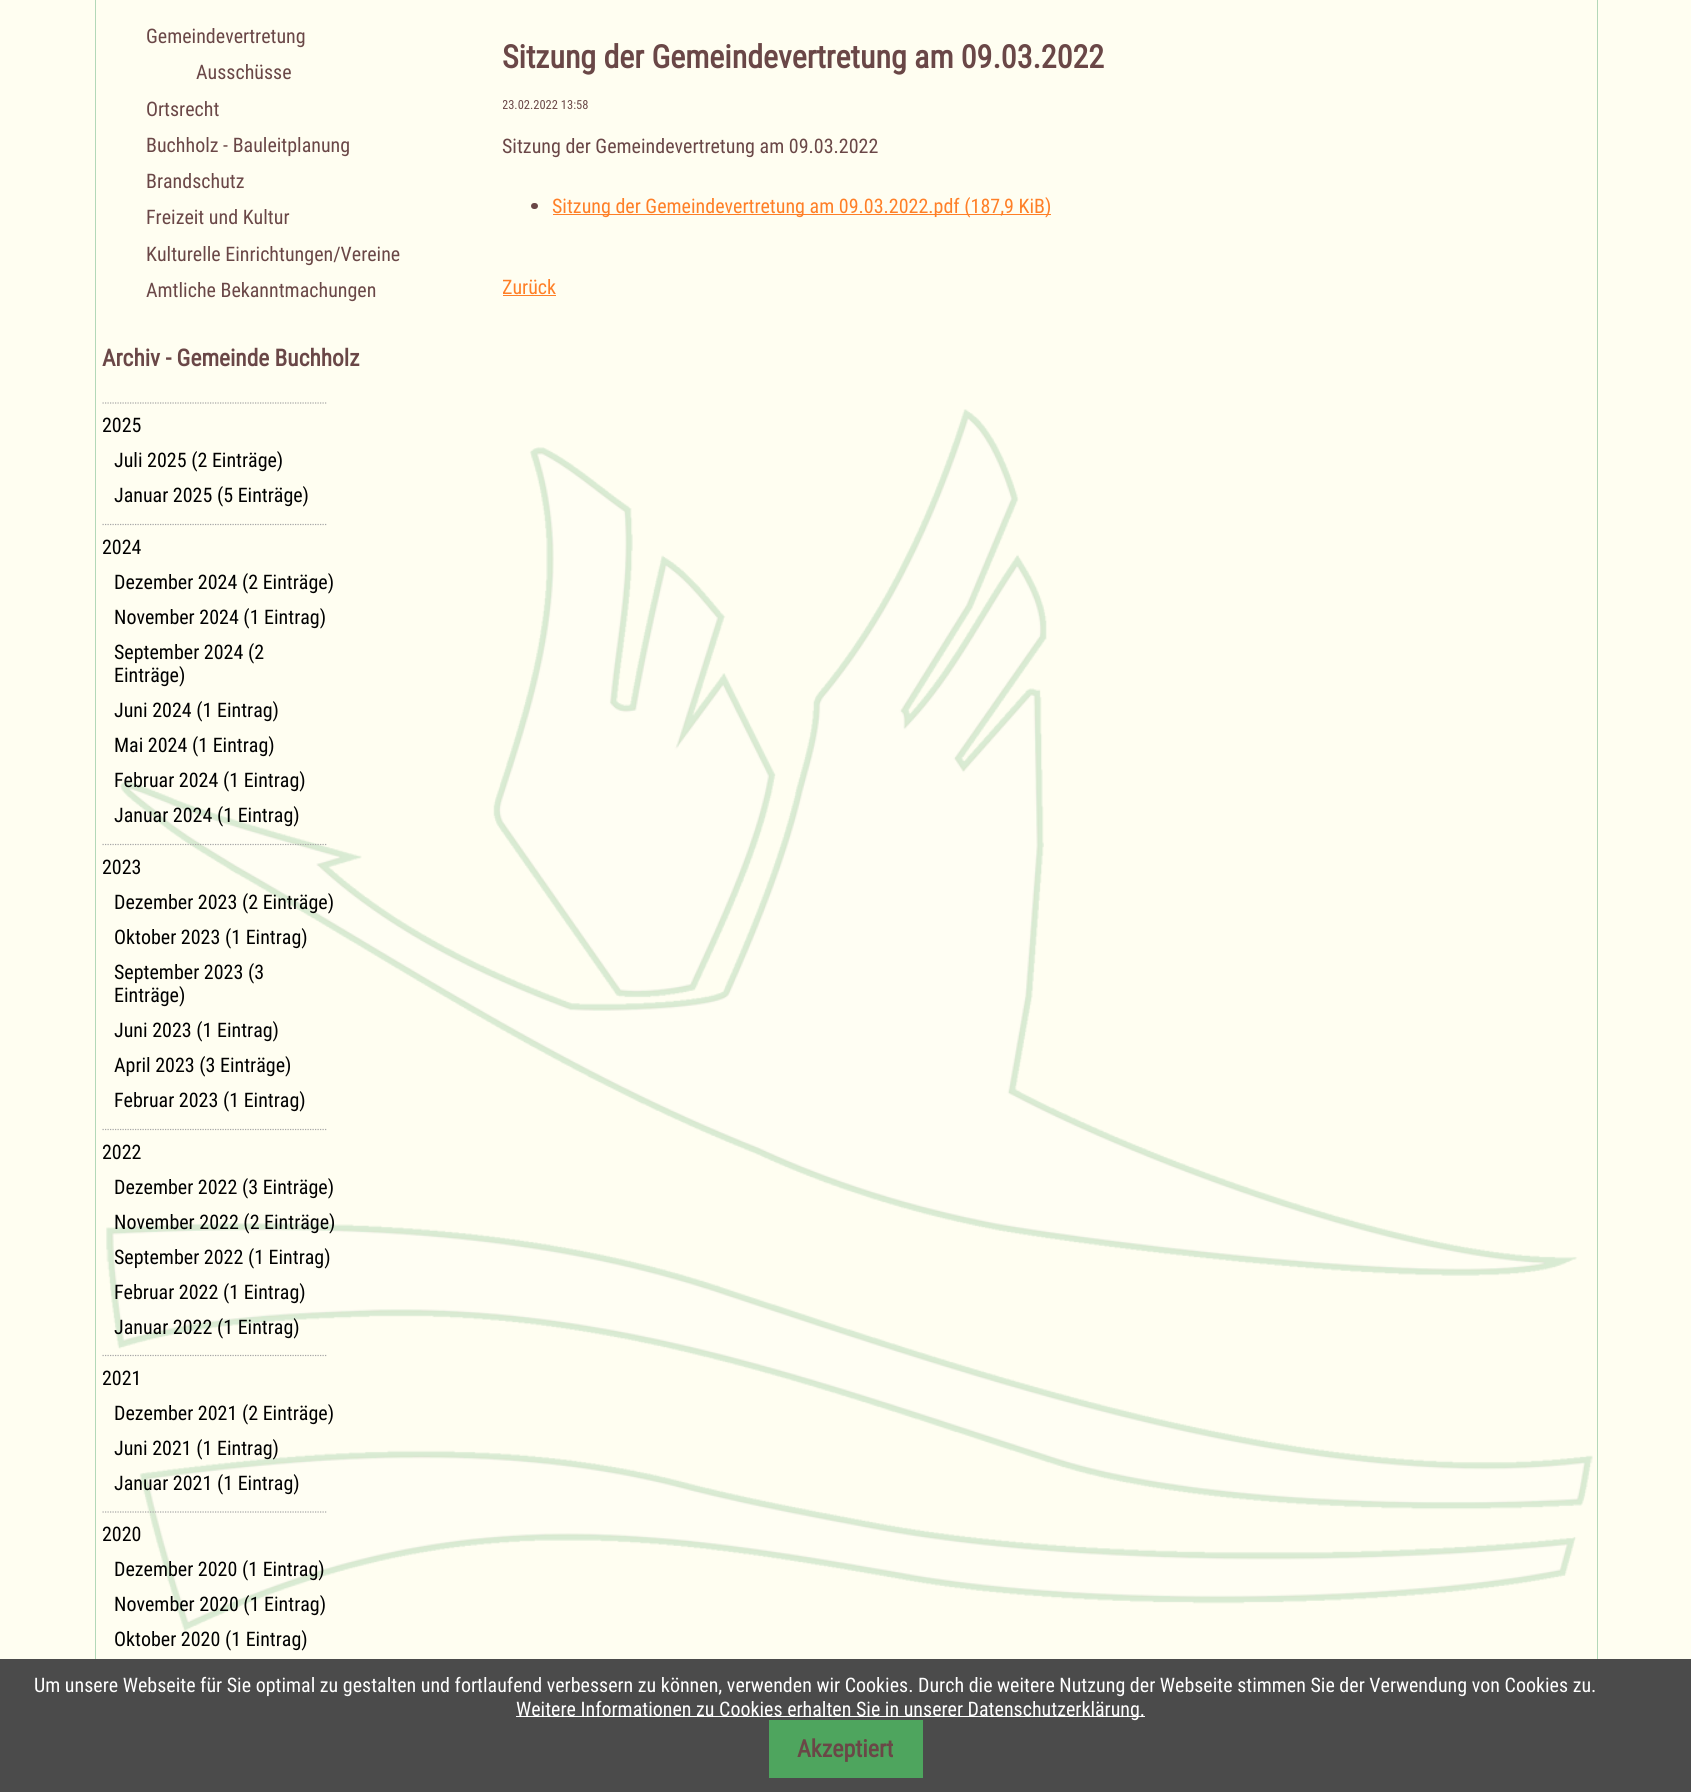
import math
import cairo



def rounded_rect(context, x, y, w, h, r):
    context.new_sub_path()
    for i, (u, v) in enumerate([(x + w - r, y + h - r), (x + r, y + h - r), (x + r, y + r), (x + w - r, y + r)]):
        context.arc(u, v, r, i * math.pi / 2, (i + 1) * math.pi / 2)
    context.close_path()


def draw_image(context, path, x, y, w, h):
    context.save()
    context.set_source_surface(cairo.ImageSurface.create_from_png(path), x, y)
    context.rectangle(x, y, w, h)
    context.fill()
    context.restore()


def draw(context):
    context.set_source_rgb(1, 254 / 255, 241 / 255)
    context.paint()
    draw_image(context, "images/1.png", 106, 409, 1487, 1222)
    context.rectangle(95.5, -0.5, 1502, 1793)
    context.set_source_rgb(179 / 255, 216 / 255, 184 / 255)
    context.set_line_width(1)
    context.stroke()
    context.new_path()
    context.move_to(102.5, 403)
    context.line_to(327.5, 403)
    context.set_source_rgb(166 / 255, 166 / 255, 166 / 255)
    context.set_line_width(1.2)
    context.set_dash([1.25, 1.25])
    context.stroke()
    context.new_path()
    context.move_to(102.5, 524.5)
    context.line_to(327.5, 524.5)
    context.stroke()
    context.new_path()
    context.move_to(102.5, 844.5)
    context.line_to(327.5, 844.5)
    context.stroke()
    context.new_path()
    context.move_to(102.5, 1129.5)
    context.line_to(327.5, 1129.5)
    context.stroke()
    context.new_path()
    context.move_to(102.5, 1355.5)
    context.line_to(327.5, 1355.5)
    context.stroke()
    context.new_path()
    context.move_to(102.5, 1512)
    context.line_to(327.5, 1512)
    context.stroke()
    context.set_source_rgb(106 / 255, 71 / 255, 71 / 255)
    rounded_rect(context, 531, 203, 7, 6, 3)
    context.fill()
    context.set_source_rgb(1, 127 / 255, 39 / 255)
    context.rectangle(553, 214, 498, 1)
    context.fill()
    context.rectangle(503, 295, 53, 1)
    context.fill()
    context.set_source_rgb(75 / 255, 75 / 255, 75 / 255)
    context.rectangle(0, 1659, 1691, 133)
    context.fill()
    context.set_source_rgb(1, 1, 1)
    context.rectangle(516, 1716, 629, 1)
    context.fill()
    context.select_font_face("Roboto Condensed")
    context.set_font_size(20)
    context.set_source_rgb(106 / 255, 71 / 255, 71 / 255)
    context.move_to(146, 43)
    context.show_text("Gemeindevertretung")
    context.move_to(196, 79)
    context.show_text("Ausschüsse")
    context.move_to(146, 116)
    context.show_text("Ortsrecht")
    context.move_to(146, 152)
    context.show_text("Buchholz - Bauleitplanung")
    context.move_to(146, 188)
    context.show_text("Brandschutz")
    context.move_to(146, 224)
    context.show_text("Freizeit und Kultur")
    context.move_to(146, 261)
    context.show_text("Kulturelle Einrichtungen/Vereine")
    context.move_to(146, 297)
    context.show_text("Amtliche Bekanntmachungen")
    context.select_font_face("Roboto Condensed", cairo.FontSlant.NORMAL, cairo.FontWeight.BOLD)
    context.set_font_size(23.4)
    context.move_to(102, 366)
    context.show_text("Archiv - Gemeinde Buchholz")
    context.select_font_face("Roboto Condensed")
    context.set_font_size(20)
    context.set_source_rgb(0, 0, 0)
    context.move_to(102, 432)
    context.show_text("2025")
    context.move_to(114, 467)
    context.show_text("Juli 2025 (2 Einträge)")
    context.move_to(114, 502)
    context.show_text("Januar 2025 (5 Einträge)")
    context.move_to(102, 554)
    context.show_text("2024")
    context.move_to(114, 589)
    context.show_text("Dezember 2024 (2 Einträge)")
    context.move_to(114, 624)
    context.show_text("November 2024 (1 Eintrag)")
    context.move_to(114, 659)
    context.show_text("September 2024 (2")
    context.move_to(114, 682)
    context.show_text("Einträge)")
    context.move_to(114, 717)
    context.show_text("Juni 2024 (1 Eintrag)")
    context.move_to(114, 752)
    context.show_text("Mai 2024 (1 Eintrag)")
    context.move_to(114, 787)
    context.show_text("Februar 2024 (1 Eintrag)")
    context.move_to(114, 822)
    context.show_text("Januar 2024 (1 Eintrag)")
    context.move_to(102, 874)
    context.show_text("2023")
    context.move_to(114, 909)
    context.show_text("Dezember 2023 (2 Einträge)")
    context.move_to(114, 944)
    context.show_text("Oktober 2023 (1 Eintrag)")
    context.move_to(114, 979)
    context.show_text("September 2023 (3")
    context.move_to(114, 1002)
    context.show_text("Einträge)")
    context.move_to(114, 1037)
    context.show_text("Juni 2023 (1 Eintrag)")
    context.move_to(114, 1072)
    context.show_text("April 2023 (3 Einträge)")
    context.move_to(114, 1107)
    context.show_text("Februar 2023 (1 Eintrag)")
    context.move_to(102, 1159)
    context.show_text("2022")
    context.move_to(114, 1194)
    context.show_text("Dezember 2022 (3 Einträge)")
    context.move_to(114, 1229)
    context.show_text("November 2022 (2 Einträge)")
    context.move_to(114, 1264)
    context.show_text("September 2022 (1 Eintrag)")
    context.move_to(114, 1299)
    context.show_text("Februar 2022 (1 Eintrag)")
    context.move_to(114, 1334)
    context.show_text("Januar 2022 (1 Eintrag)")
    context.move_to(102, 1385)
    context.show_text("2021")
    context.move_to(114, 1420)
    context.show_text("Dezember 2021 (2 Einträge)")
    context.move_to(114, 1455)
    context.show_text("Juni 2021 (1 Eintrag)")
    context.move_to(114, 1490)
    context.show_text("Januar 2021 (1 Eintrag)")
    context.move_to(102, 1541)
    context.show_text("2020")
    context.move_to(114, 1576)
    context.show_text("Dezember 2020 (1 Eintrag)")
    context.move_to(114, 1611)
    context.show_text("November 2020 (1 Eintrag)")
    context.move_to(114, 1646)
    context.show_text("Oktober 2020 (1 Eintrag)")
    context.select_font_face("Roboto Condensed", cairo.FontSlant.NORMAL, cairo.FontWeight.BOLD)
    context.set_font_size(32)
    context.set_source_rgb(106 / 255, 71 / 255, 71 / 255)
    context.move_to(502, 68)
    context.show_text("Sitzung der Gemeindevertretung am 09.03.2022")
    context.save()
    context.rectangle(503, 16, 1060, 222)
    context.clip()
    context.select_font_face("Roboto Condensed")
    context.set_font_size(12.5)
    context.move_to(502, 109)
    context.show_text("23.02.2022 13:58")
    context.restore()
    context.select_font_face("Roboto Condensed")
    context.set_font_size(20)
    context.move_to(502, 153)
    context.show_text("Sitzung der Gemeindevertretung am 09.03.2022")
    context.set_source_rgb(1, 127 / 255, 39 / 255)
    context.move_to(552, 213)
    context.show_text("Sitzung der Gemeindevertretung am 09.03.2022.pdf (187,9 KiB)")
    context.save()
    context.rectangle(503, 0, 1060, 329)
    context.clip()
    context.move_to(502, 294)
    context.show_text("Zurück")
    context.restore()
    context.set_source_rgb(1, 1, 1)
    context.move_to(34, 1692)
    context.show_text("Um unsere Webseite für Sie optimal zu gestalten und fortlaufend verbessern zu können, verwenden wir Cookies. Durch die weitere Nutzung der Webseite stimmen Sie der Verwendung von Cookies zu.")
    context.move_to(516, 1716)
    context.show_text("Weitere Informationen zu Cookies erhalten Sie in unserer Datenschutzerklärung.")
    context.set_source_rgb(78 / 255, 165 / 255, 94 / 255)
    context.rectangle(769, 1720, 154, 58)
    context.fill()
    context.select_font_face("Roboto Condensed", cairo.FontSlant.NORMAL, cairo.FontWeight.BOLD)
    context.set_font_size(24)
    context.set_source_rgb(106 / 255, 71 / 255, 71 / 255)
    context.move_to(797, 1757)
    context.show_text("Akzeptiert")


surface = cairo.ImageSurface(cairo.Format.RGB24, 1691, 1792)
context = cairo.Context(surface)
options = cairo.FontOptions()
options.set_hint_metrics(cairo.HintMetrics.OFF)
options.set_hint_style(cairo.HintStyle.NONE)
context.set_font_options(options)
context.set_miter_limit(4)
draw(context)
surface.write_to_png("out.png")
